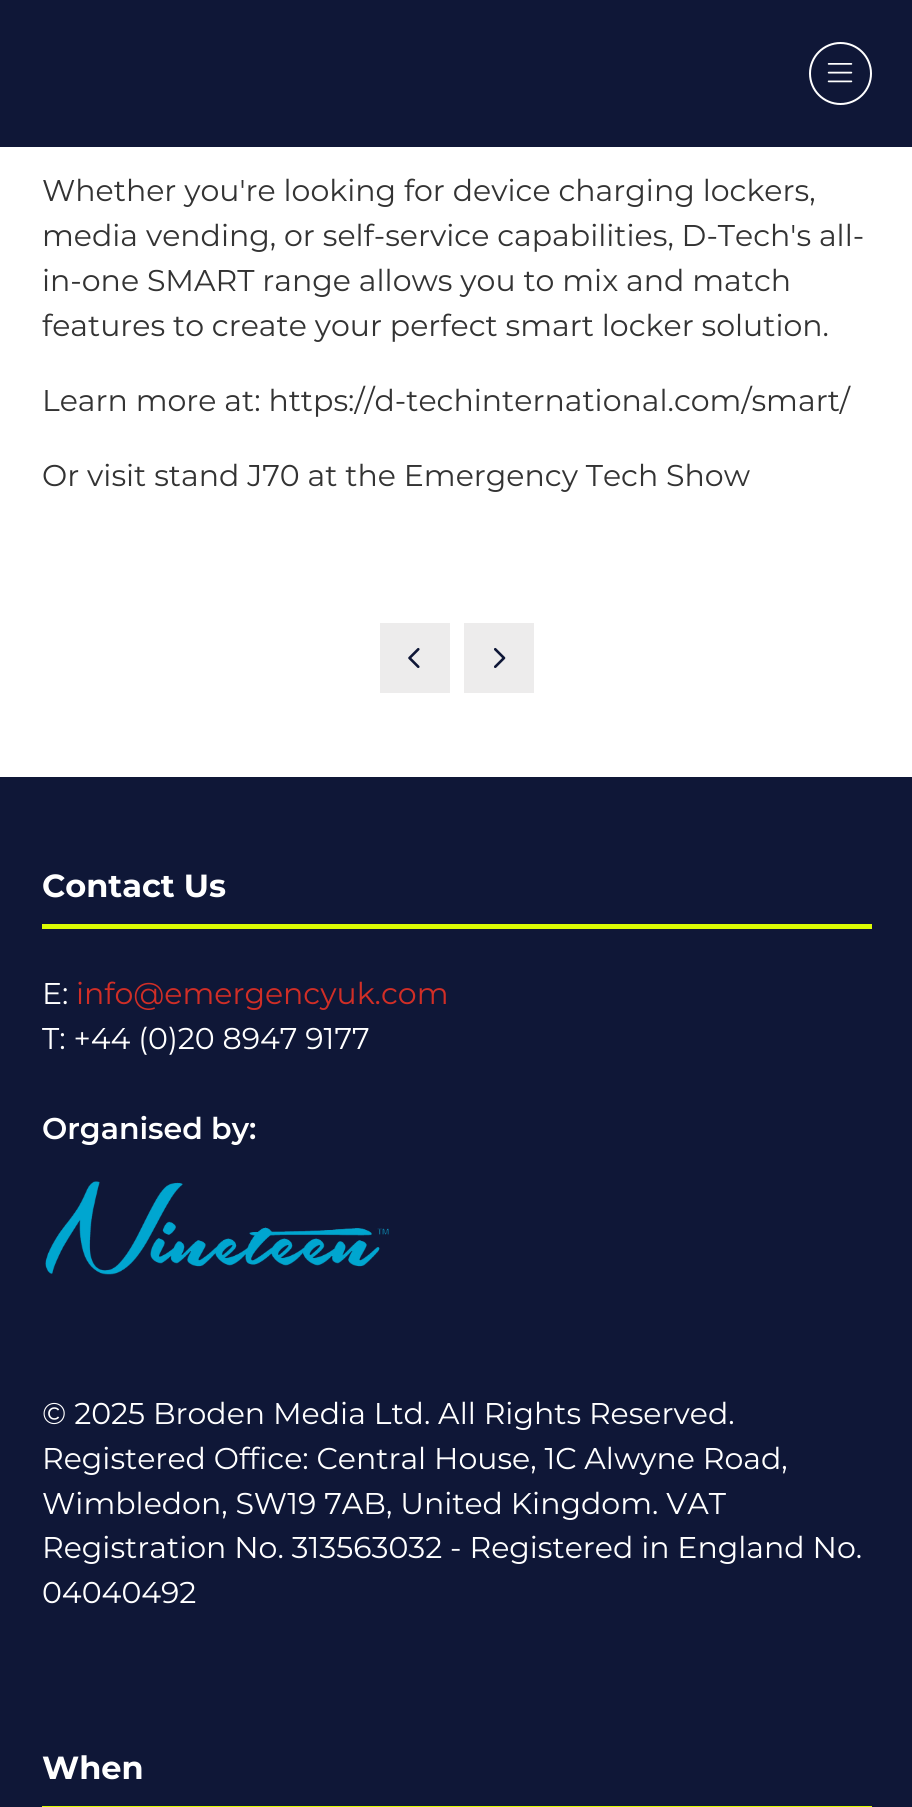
import math
import cairo



def draw_image(context, path, x, y, w, h):
    context.save()
    context.set_source_surface(cairo.ImageSurface.create_from_png(path), x, y)
    context.rectangle(x, y, w, h)
    context.fill()
    context.restore()


def draw(context):
    context.set_source_rgb(1, 1, 1)
    context.paint()
    context.set_source_rgb(15 / 255, 23 / 255, 55 / 255)
    context.rectangle(0, 0, 912, 147)
    context.fill()
    context.arc(840.5, 73.5, 30.5, 0, 2 * math.pi)
    context.set_source_rgb(1, 1, 1)
    context.stroke()
    draw_image(context, "images/1.png", 827, 63, 26, 20)
    context.set_source_rgb(237 / 255, 236 / 255, 236 / 255)
    context.rectangle(380, 623, 70, 70)
    context.fill()
    draw_image(context, "images/2.png", 408, 647, 12, 21)
    context.rectangle(464, 623, 70, 70)
    context.fill()
    draw_image(context, "images/3.png", 494, 647, 12, 21)
    context.set_source_rgb(15 / 255, 23 / 255, 55 / 255)
    context.rectangle(0, 777, 912, 1030)
    context.fill()
    context.set_source_rgb(220 / 255, 252 / 255, 4 / 255)
    context.rectangle(42, 924, 830, 5)
    context.fill()
    draw_image(context, "images/4.png", 45, 1181, 344, 94)
    context.rectangle(42, 1806, 830, 1)
    context.fill()
    context.select_font_face("Montserrat")
    context.set_font_size(30)
    context.set_source_rgb(51 / 255, 51 / 255, 51 / 255)
    context.move_to(42, 201)
    context.show_text("Whether you're looking for device charging lockers,")
    context.move_to(42, 246)
    context.show_text("media vending, or self-service capabilities, D-Tech's all-")
    context.move_to(42, 291)
    context.show_text("in-one SMART range allows you to mix and match")
    context.move_to(42, 336)
    context.show_text("features to create your perfect smart locker solution.")
    context.move_to(42, 411)
    context.show_text("Learn more at: https://d-techinternational.com/smart/")
    context.move_to(42, 486)
    context.show_text("Or visit stand J70 at the Emergency Tech Show")
    context.select_font_face("Montserrat", cairo.FontSlant.NORMAL, cairo.FontWeight.BOLD)
    context.set_font_size(32)
    context.set_source_rgb(1, 1, 1)
    context.move_to(42, 897)
    context.show_text("Contact Us")
    context.select_font_face("Montserrat")
    context.set_font_size(30)
    context.move_to(42, 1004)
    context.show_text("E:")
    context.set_source_rgb(209 / 255, 46 / 255, 38 / 255)
    context.move_to(76, 1004)
    context.show_text("info@emergencyuk.com")
    context.set_source_rgb(1, 1, 1)
    context.move_to(42, 1049)
    context.show_text("T: +44 (0)20 8947 9177")
    context.select_font_face("Montserrat SemiBold")
    context.move_to(42, 1139)
    context.show_text("Organised by:")
    context.select_font_face("Montserrat")
    context.move_to(42, 1424)
    context.show_text("© 2025 Broden Media Ltd. All Rights Reserved.")
    context.move_to(42, 1469)
    context.show_text("Registered Office: Central House, 1C Alwyne Road,")
    context.move_to(42, 1514)
    context.show_text("Wimbledon, SW19 7AB, United Kingdom. VAT")
    context.move_to(42, 1558)
    context.show_text("Registration No. 313563032 - Registered in England No.")
    context.move_to(42, 1603)
    context.show_text("04040492")
    context.select_font_face("Montserrat", cairo.FontSlant.NORMAL, cairo.FontWeight.BOLD)
    context.set_font_size(32)
    context.move_to(42, 1779)
    context.show_text("When")


surface = cairo.ImageSurface(cairo.Format.RGB24, 912, 1807)
context = cairo.Context(surface)
options = cairo.FontOptions()
options.set_hint_metrics(cairo.HintMetrics.OFF)
options.set_hint_style(cairo.HintStyle.NONE)
context.set_font_options(options)
context.set_miter_limit(4)
draw(context)
surface.write_to_png("out.png")
